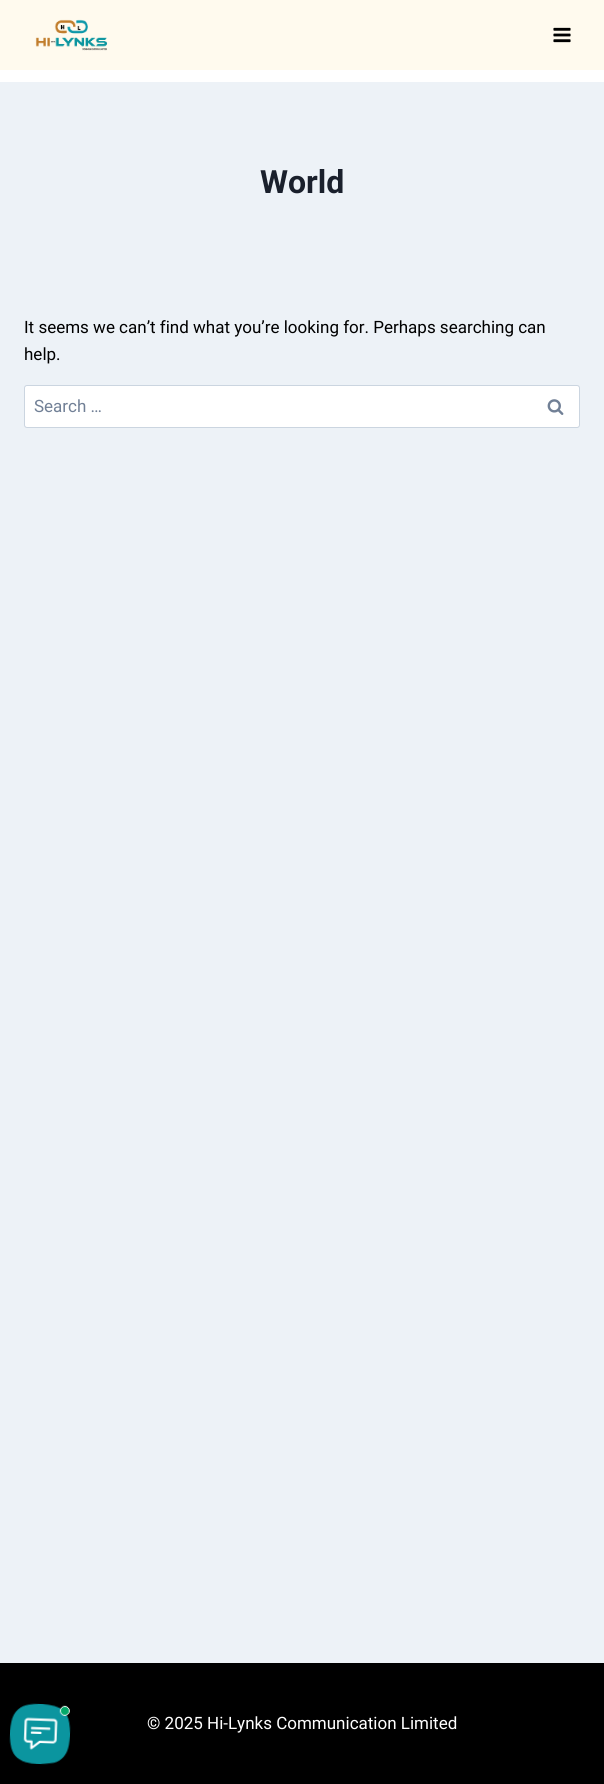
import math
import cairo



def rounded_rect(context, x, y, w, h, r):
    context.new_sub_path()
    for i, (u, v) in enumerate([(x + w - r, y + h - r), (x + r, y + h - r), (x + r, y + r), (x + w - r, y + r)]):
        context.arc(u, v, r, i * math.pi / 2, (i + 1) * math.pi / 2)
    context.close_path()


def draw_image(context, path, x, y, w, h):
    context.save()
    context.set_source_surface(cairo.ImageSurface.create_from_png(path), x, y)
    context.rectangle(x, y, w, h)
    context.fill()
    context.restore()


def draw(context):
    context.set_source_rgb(237 / 255, 242 / 255, 247 / 255)
    context.paint()
    context.set_source_rgb(1, 1, 1)
    context.rectangle(0, 70, 604, 12)
    context.fill()
    context.set_source_rgb(1, 250 / 255, 238 / 255)
    context.rectangle(0, 0, 604, 70)
    context.fill()
    draw_image(context, "images/1.png", 35, 19, 73, 32)
    draw_image(context, "images/2.png", 553, 27, 18, 16)
    context.set_source_rgb(1, 1, 1)
    rounded_rect(context, 24.5, 385.5, 555, 42, 2.5)
    context.fill_preserve()
    context.set_source_rgb(203 / 255, 213 / 255, 224 / 255)
    context.set_line_width(1)
    context.stroke()
    draw_image(context, "images/3.png", 547, 399, 17, 16)
    context.set_source_rgb(0, 0, 0)
    context.rectangle(0, 1663, 604, 121)
    context.fill()
    draw_image(context, "images/4.png", 9, 1703, 62, 62)
    context.select_font_face("Roboto", cairo.FontSlant.NORMAL, cairo.FontWeight.BOLD)
    context.set_font_size(32)
    context.set_source_rgb(26 / 255, 32 / 255, 44 / 255)
    context.move_to(260, 193)
    context.show_text("World")
    context.select_font_face("Roboto")
    context.set_font_size(17)
    context.set_source_rgb(0, 0, 0)
    context.move_to(24, 333)
    context.show_text("It seems we can’t find what you’re looking for. Perhaps searching can")
    context.move_to(24, 360)
    context.show_text("help.")
    context.set_source_rgb(113 / 255, 128 / 255, 150 / 255)
    context.move_to(34, 412)
    context.show_text("Search …")
    context.set_source_rgb(1, 1, 1)
    context.move_to(147, 1729)
    context.show_text("© 2025 Hi-Lynks Communication Limited")


surface = cairo.ImageSurface(cairo.Format.RGB24, 604, 1784)
context = cairo.Context(surface)
options = cairo.FontOptions()
options.set_hint_metrics(cairo.HintMetrics.OFF)
options.set_hint_style(cairo.HintStyle.NONE)
context.set_font_options(options)
context.set_miter_limit(4)
draw(context)
surface.write_to_png("out.png")
